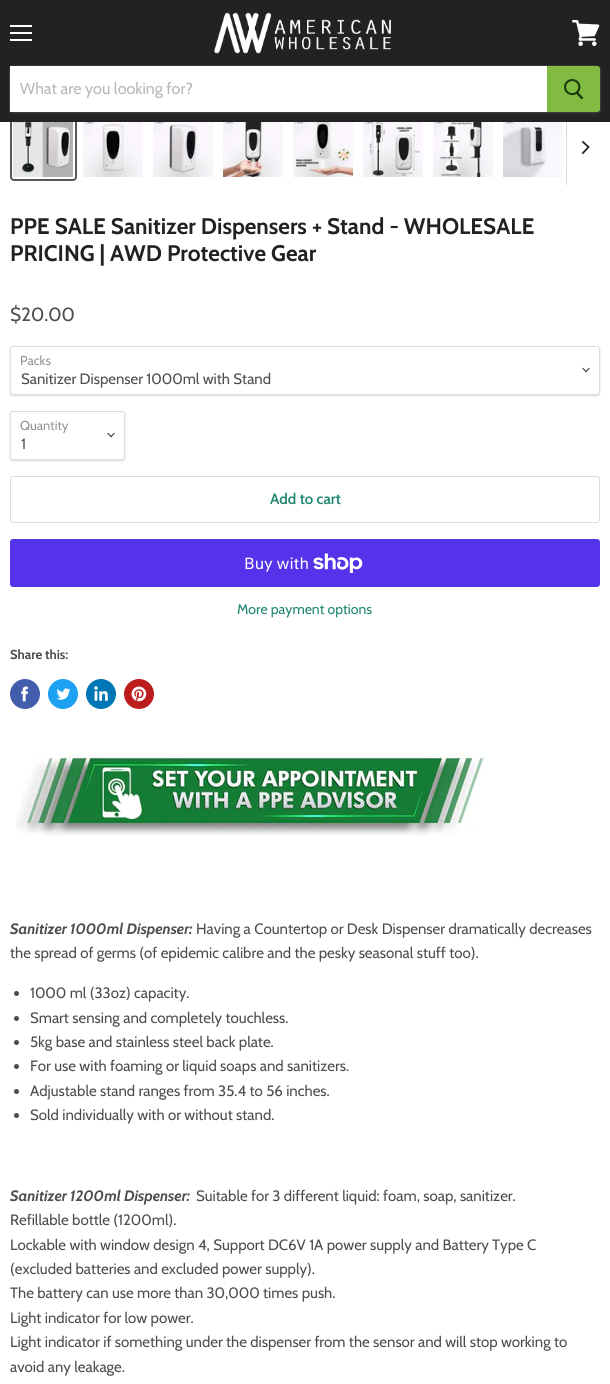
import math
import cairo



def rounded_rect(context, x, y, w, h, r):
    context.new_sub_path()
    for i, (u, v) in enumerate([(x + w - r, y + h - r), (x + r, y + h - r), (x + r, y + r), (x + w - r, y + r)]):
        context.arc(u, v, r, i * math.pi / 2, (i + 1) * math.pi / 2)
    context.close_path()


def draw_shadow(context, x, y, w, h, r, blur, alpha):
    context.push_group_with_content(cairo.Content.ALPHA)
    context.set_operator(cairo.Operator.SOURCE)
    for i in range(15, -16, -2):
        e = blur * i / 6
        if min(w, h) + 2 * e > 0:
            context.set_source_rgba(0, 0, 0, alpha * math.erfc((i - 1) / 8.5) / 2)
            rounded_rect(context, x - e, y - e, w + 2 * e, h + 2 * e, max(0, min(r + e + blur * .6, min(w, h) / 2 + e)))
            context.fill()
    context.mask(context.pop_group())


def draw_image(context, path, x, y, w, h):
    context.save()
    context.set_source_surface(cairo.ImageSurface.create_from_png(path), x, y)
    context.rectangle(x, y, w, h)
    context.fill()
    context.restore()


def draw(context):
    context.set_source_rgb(1, 1, 1)
    context.paint()
    rounded_rect(context, 11, 115, 65, 65, 3)
    context.set_source_rgb(88 / 255, 88 / 255, 88 / 255)
    context.stroke()
    context.set_source_rgb(34 / 255, 34 / 255, 34 / 255)
    context.rectangle(0, 0, 610, 122)
    context.fill()
    context.set_source_rgb(1, 1, 1)
    context.rectangle(10, 25, 22, 2)
    context.fill()
    context.rectangle(10, 32, 22, 2)
    context.fill()
    context.rectangle(10, 39, 22, 2)
    context.fill()
    draw_image(context, "images/1.png", 572, 20, 28, 26)
    draw_image(context, "images/2.png", 214, 12, 177, 42)
    context.set_source_rgb(127 / 255, 127 / 255, 127 / 255)
    draw_shadow(context, 9, 67, 592, 48, 4, 1.5, 0.11)
    rounded_rect(context, 9.5, 65.5, 591, 47, 3.5)
    context.set_source_rgba(127 / 255, 127 / 255, 127 / 255, 0.2)
    context.set_line_width(1)
    context.stroke()
    context.set_source_rgb(1, 1, 1)
    context.rectangle(10, 66, 537, 46)
    context.fill()
    context.set_source_rgb(129 / 255, 187 / 255, 65 / 255)
    context.new_path()
    context.move_to(547.5, 66.5)
    context.line_to(597, 66.5)
    context.curve_to(598.5, 66.5, 599.5, 67.5, 599.5, 69)
    context.line_to(599.5, 109)
    context.curve_to(599.5, 110.5, 598.5, 111.5, 597, 111.5)
    context.line_to(547.5, 111.5)
    context.close_path()
    context.fill_preserve()
    context.stroke()
    draw_image(context, "images/3.png", 564, 79, 20, 21)
    draw_image(context, "images/4.png", 13, 122, 60, 55)
    draw_image(context, "images/5.png", 83, 122, 60, 55)
    draw_image(context, "images/6.png", 153, 122, 60, 55)
    draw_image(context, "images/7.png", 223, 122, 60, 55)
    draw_image(context, "images/8.png", 293, 122, 60, 55)
    draw_image(context, "images/9.png", 363, 122, 60, 55)
    draw_image(context, "images/10.png", 433, 122, 60, 55)
    draw_image(context, "images/11.png", 503, 122, 60, 55)
    context.set_source_rgb(217 / 255, 217 / 255, 217 / 255)
    context.rectangle(566, 122, 1, 63)
    context.fill()
    context.new_path()
    context.move_to(588.5, 147)
    context.line_to(583, 142)
    context.move_to(588.5, 147)
    context.line_to(583, 153)
    context.set_source_rgb(34 / 255, 34 / 255, 34 / 255)
    context.set_line_width(1.8)
    context.set_line_cap(cairo.LineCap.SQUARE)
    context.stroke()
    context.set_source_rgb(0, 0, 0)
    draw_shadow(context, 10, 347, 590, 49, 3, 1, 0.15)
    context.set_source_rgb(1, 1, 1)
    rounded_rect(context, 10.5, 346.5, 589, 48, 2.5)
    context.fill_preserve()
    context.set_source_rgb(221 / 255, 221 / 255, 221 / 255)
    context.set_line_width(1)
    context.set_line_cap(cairo.LineCap.BUTT)
    context.stroke()
    draw_image(context, "images/12.png", 582, 367, 8, 6)
    context.set_source_rgb(0, 0, 0)
    draw_shadow(context, 10, 412, 115, 49, 3, 1, 0.15)
    context.set_source_rgb(1, 1, 1)
    rounded_rect(context, 10.5, 411.5, 114, 48, 2.5)
    context.fill_preserve()
    context.set_source_rgb(221 / 255, 221 / 255, 221 / 255)
    context.stroke()
    draw_image(context, "images/12.png", 107, 432, 8, 6)
    rounded_rect(context, 10.5, 476.5, 589, 46, 2.5)
    context.stroke()
    context.set_source_rgb(84 / 255, 51 / 255, 235 / 255)
    rounded_rect(context, 10, 539, 590, 48, 3)
    context.fill()
    draw_image(context, "images/13.png", 313, 553, 50, 20)
    context.set_source_rgb(66 / 255, 93 / 255, 171 / 255)
    context.arc(25, 694, 15, 0, 2 * math.pi)
    context.fill()
    draw_image(context, "images/14.png", 21, 686, 7, 16)
    context.set_source_rgb(29 / 255, 161 / 255, 242 / 255)
    context.arc(63, 694, 15, 0, 2 * math.pi)
    context.fill()
    draw_image(context, "images/15.png", 56, 688, 15, 12)
    context.set_source_rgb(0, 119 / 255, 181 / 255)
    context.arc(101, 694, 15, 0, 2 * math.pi)
    context.fill()
    draw_image(context, "images/16.png", 94, 686, 14, 15)
    context.set_source_rgb(189 / 255, 28 / 255, 28 / 255)
    context.arc(139, 694, 15, 0, 2 * math.pi)
    context.fill()
    draw_image(context, "images/17.png", 131, 686, 16, 16)
    draw_image(context, "images/18.png", 16, 753, 469, 83)
    context.set_source_rgb(77 / 255, 77 / 255, 77 / 255)
    context.arc(16.5, 993.5, 2.5, 0, 2 * math.pi)
    context.fill()
    context.arc(16.5, 1018.5, 2.5, 0, 2 * math.pi)
    context.fill()
    context.arc(16.5, 1042.5, 2.5, 0, 2 * math.pi)
    context.fill()
    context.arc(16.5, 1066.5, 2.5, 0, 2 * math.pi)
    context.fill()
    context.arc(16.5, 1091.5, 2.5, 0, 2 * math.pi)
    context.fill()
    context.arc(16.5, 1115.5, 2.5, 0, 2 * math.pi)
    context.fill()
    context.select_font_face("Cabin")
    context.set_font_size(16)
    context.set_source_rgb(184 / 255, 184 / 255, 184 / 255)
    context.move_to(20, 94)
    context.show_text("What are you looking for?")
    context.select_font_face("Cabin", cairo.FontSlant.NORMAL, cairo.FontWeight.BOLD)
    context.set_font_size(22.5)
    context.set_source_rgb(34 / 255, 34 / 255, 34 / 255)
    context.move_to(10, 234)
    context.show_text("PPE SALE Sanitizer Dispensers + Stand - WHOLESALE")
    context.move_to(10, 261)
    context.show_text("PRICING | AWD Protective Gear")
    context.select_font_face("Cabin")
    context.set_font_size(19)
    context.set_source_rgb(77 / 255, 77 / 255, 77 / 255)
    context.move_to(10, 321)
    context.show_text("$20.00")
    context.set_font_size(13)
    context.set_source_rgb(148 / 255, 148 / 255, 148 / 255)
    context.move_to(20, 365)
    context.show_text("Packs")
    context.set_font_size(15)
    context.set_source_rgb(77 / 255, 77 / 255, 77 / 255)
    context.move_to(21, 384)
    context.show_text("Sanitizer Dispenser 1000ml with Stand")
    context.set_font_size(13)
    context.set_source_rgb(148 / 255, 148 / 255, 148 / 255)
    context.move_to(20, 430)
    context.show_text("Quantity")
    context.set_font_size(15)
    context.set_source_rgb(77 / 255, 77 / 255, 77 / 255)
    context.move_to(21, 449)
    context.show_text("1")
    context.select_font_face("Cabin SemiBold")
    context.set_source_rgb(30 / 255, 133 / 255, 112 / 255)
    context.move_to(270, 504)
    context.show_text("Add to cart")
    context.select_font_face("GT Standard")
    context.set_font_size(16)
    context.set_source_rgb(1, 1, 1)
    context.move_to(244, 569)
    context.show_text("Buy with")
    context.select_font_face("Cabin")
    context.set_font_size(14)
    context.set_source_rgb(30 / 255, 133 / 255, 112 / 255)
    context.move_to(237, 614)
    context.show_text("More payment options")
    context.select_font_face("Cabin", cairo.FontSlant.NORMAL, cairo.FontWeight.BOLD)
    context.set_font_size(13)
    context.set_source_rgb(77 / 255, 77 / 255, 77 / 255)
    context.move_to(10, 659)
    context.show_text("Share this:")
    context.select_font_face("Cabin", cairo.FontSlant.ITALIC, cairo.FontWeight.BOLD)
    context.set_font_size(15)
    context.move_to(10, 934)
    context.show_text("Sanitizer 1000ml Dispenser:")
    context.select_font_face("Cabin")
    context.move_to(196, 934)
    context.show_text("Having a Countertop or Desk Dispenser dramatically decreases")
    context.move_to(10, 958)
    context.show_text("the spread of germs (of epidemic calibre and the pesky seasonal stuff too).")
    context.move_to(30, 998)
    context.show_text("1000 ml (33oz) capacity.")
    context.move_to(30, 1023)
    context.show_text("Smart sensing and completely touchless.")
    context.move_to(30, 1047)
    context.show_text("5kg base and stainless steel back plate.")
    context.move_to(30, 1071)
    context.show_text("For use with foaming or liquid soaps and sanitizers.")
    context.move_to(30, 1096)
    context.show_text("Adjustable stand ranges from 35.4 to 56 inches.")
    context.move_to(30, 1120)
    context.show_text("Sold individually with or without stand.")
    context.select_font_face("Cabin", cairo.FontSlant.ITALIC, cairo.FontWeight.BOLD)
    context.move_to(10, 1201)
    context.show_text("Sanitizer 1200ml Dispenser:")
    context.select_font_face("Cabin")
    context.move_to(196, 1201)
    context.show_text("Suitable for 3 different liquid: foam, soap, sanitizer.")
    context.move_to(10, 1225)
    context.show_text("Refillable bottle (1200ml).")
    context.move_to(10, 1250)
    context.show_text("Lockable with window design 4, Support DC6V 1A power supply and Battery Type C")
    context.move_to(10, 1274)
    context.show_text("(excluded batteries and excluded power supply).")
    context.move_to(10, 1298)
    context.show_text("The battery can use more than 30,000 times push.")
    context.move_to(10, 1323)
    context.show_text("Light indicator for low power.")
    context.move_to(10, 1347)
    context.show_text("Light indicator if something under the dispenser from the sensor and will stop working to")
    context.move_to(10, 1372)
    context.show_text("avoid any leakage.")


surface = cairo.ImageSurface(cairo.Format.RGB24, 610, 1384)
context = cairo.Context(surface)
options = cairo.FontOptions()
options.set_hint_metrics(cairo.HintMetrics.OFF)
options.set_hint_style(cairo.HintStyle.NONE)
context.set_font_options(options)
context.set_miter_limit(4)
draw(context)
surface.write_to_png("out.png")
